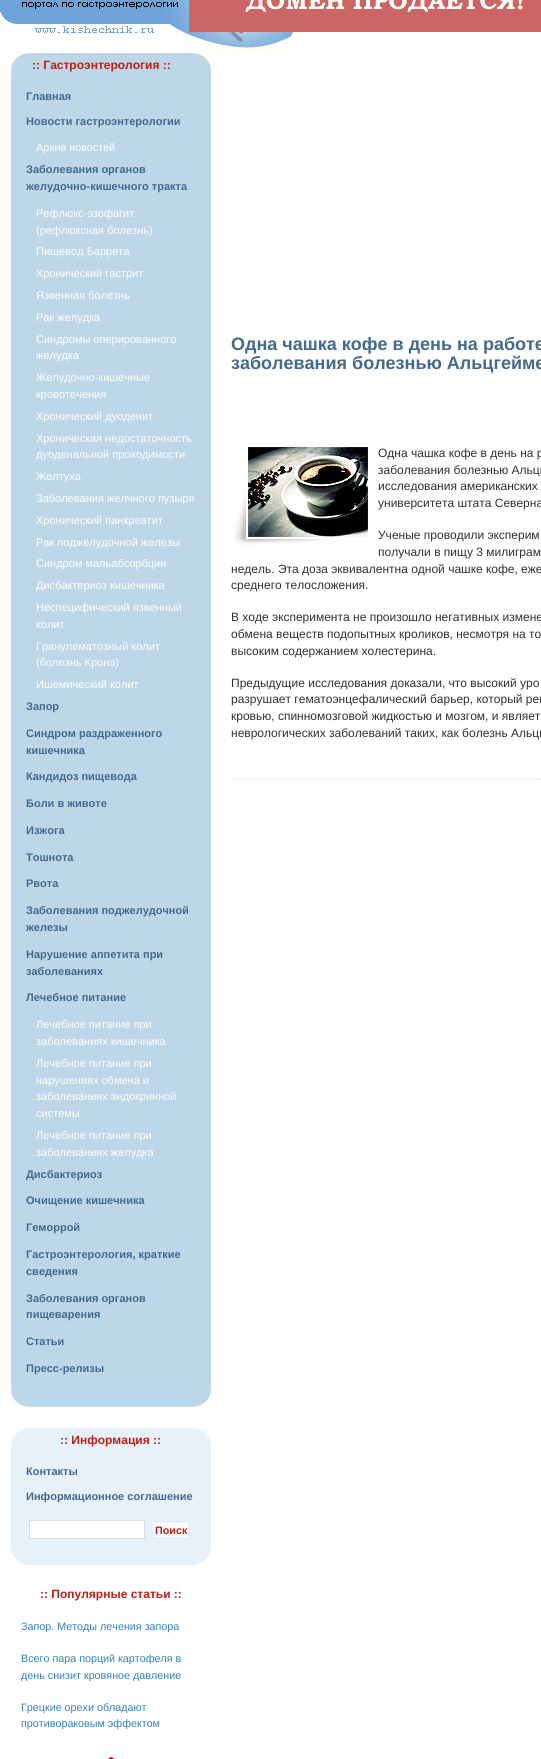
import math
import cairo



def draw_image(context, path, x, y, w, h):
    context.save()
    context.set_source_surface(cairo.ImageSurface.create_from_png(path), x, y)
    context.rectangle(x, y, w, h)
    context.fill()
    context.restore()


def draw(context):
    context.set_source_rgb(1, 1, 1)
    context.paint()
    draw_image(context, "images/2.png", 0, 0, 541, 53)
    draw_image(context, "images/1.png", 189, 0, 352, 32)
    context.set_source_rgb(189 / 255, 215 / 255, 232 / 255)
    context.rectangle(11, 53, 200, 1334)
    context.fill()
    draw_image(context, "images/3.png", 11, 53, 21, 20)
    draw_image(context, "images/4.png", 190, 53, 21, 20)
    draw_image(context, "images/5.png", 11, 1387, 21, 20)
    context.set_source_rgb(187 / 255, 216 / 255, 234 / 255)
    context.rectangle(32, 1387, 158, 20)
    context.fill()
    draw_image(context, "images/6.png", 190, 1387, 21, 20)
    context.set_source_rgb(230 / 255, 241 / 255, 249 / 255)
    context.rectangle(11, 1428, 200, 117)
    context.fill()
    draw_image(context, "images/7.png", 11, 1428, 15, 15)
    draw_image(context, "images/8.png", 196, 1428, 15, 15)
    context.set_source_rgb(1, 1, 1)
    context.rectangle(29.5, 1520.5, 115, 18)
    context.fill_preserve()
    context.set_source_rgb(221 / 255, 221 / 255, 221 / 255)
    context.set_line_width(1)
    context.stroke()
    context.set_source_rgb(1, 1, 1)
    context.rectangle(154, 1523, 34, 14)
    context.fill()
    draw_image(context, "images/9.png", 11, 1545, 21, 20)
    context.set_source_rgb(230 / 255, 241 / 255, 249 / 255)
    context.rectangle(32, 1545, 158, 20)
    context.fill()
    draw_image(context, "images/10.png", 190, 1545, 21, 20)
    draw_image(context, "images/11.png", 106, 1757, 12, 2)
    draw_image(context, "images/12.png", 234, 447, 134, 98)
    context.new_path()
    context.move_to(231, 779)
    context.line_to(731, 779)
    context.set_source_rgb(238 / 255, 238 / 255, 238 / 255)
    context.set_line_width(2)
    context.set_dash([2, 2])
    context.stroke()
    context.select_font_face("Liberation Sans", cairo.FontSlant.NORMAL, cairo.FontWeight.BOLD)
    context.set_font_size(12)
    context.set_source_rgb(188 / 255, 31 / 255, 19 / 255)
    context.move_to(32, 69)
    context.show_text(":: Гастроэнтерология ::")
    context.set_font_size(11)
    context.set_source_rgb(67 / 255, 105 / 255, 142 / 255)
    context.move_to(26, 100)
    context.show_text("Главная")
    context.move_to(26, 125)
    context.show_text("Новости гастроэнтерологии")
    context.select_font_face("Liberation Sans")
    context.set_font_size(10.75)
    context.set_source_rgb(1, 1, 1)
    context.move_to(36, 151)
    context.show_text("Архив новостей")
    context.select_font_face("Liberation Sans", cairo.FontSlant.NORMAL, cairo.FontWeight.BOLD)
    context.set_font_size(11)
    context.set_source_rgb(67 / 255, 105 / 255, 142 / 255)
    context.move_to(26, 173)
    context.show_text("Заболевания органов")
    context.move_to(26, 190)
    context.show_text("желудочно-кишечного тракта")
    context.select_font_face("Liberation Sans")
    context.set_source_rgb(1, 1, 1)
    context.move_to(36, 217)
    context.show_text("Рефлюкс-эзофагит")
    context.move_to(36, 234)
    context.show_text("(рефлюксная болезнь)")
    context.move_to(36, 255)
    context.show_text("Пищевод Баррета")
    context.move_to(36, 277)
    context.show_text("Хронический гастрит")
    context.move_to(36, 299)
    context.show_text("Язвенная болезнь")
    context.move_to(36, 321)
    context.show_text("Рак желудка")
    context.move_to(36, 343)
    context.show_text("Синдромы оперированного")
    context.move_to(36, 359)
    context.show_text("желудка")
    context.move_to(36, 381)
    context.show_text("Желудочно-кишечные")
    context.move_to(36, 398)
    context.show_text("кровотечения")
    context.move_to(36, 420)
    context.show_text("Хронический дуоденит")
    context.move_to(36, 442)
    context.show_text("Хроническая недостаточность")
    context.move_to(36, 458)
    context.show_text("дуоденальной проходимости")
    context.move_to(36, 480)
    context.show_text("Желтуха")
    context.move_to(36, 502)
    context.show_text("Заболевания желчного пузыря")
    context.move_to(36, 524)
    context.show_text("Хронический панкреатит")
    context.move_to(36, 546)
    context.show_text("Рак поджелудочной железы")
    context.move_to(36, 567)
    context.show_text("Синдром мальабсорбции")
    context.move_to(36, 589)
    context.show_text("Дисбактериоз кишечника")
    context.move_to(36, 611)
    context.show_text("Неспецифический язвенный")
    context.move_to(36, 628)
    context.show_text("колит")
    context.move_to(36, 650)
    context.show_text("Гранулематозный колит")
    context.move_to(36, 666)
    context.show_text("(болезнь Крона)")
    context.move_to(36, 688)
    context.show_text("Ишемический колит")
    context.select_font_face("Liberation Sans", cairo.FontSlant.NORMAL, cairo.FontWeight.BOLD)
    context.set_source_rgb(67 / 255, 105 / 255, 142 / 255)
    context.move_to(26, 710)
    context.show_text("Запор")
    context.move_to(26, 737)
    context.show_text("Синдром раздраженного")
    context.move_to(26, 754)
    context.show_text("кишечника")
    context.move_to(26, 780)
    context.show_text("Кандидоз пищевода")
    context.move_to(26, 807)
    context.show_text("Боли в животе")
    context.move_to(26, 834)
    context.show_text("Изжога")
    context.move_to(26, 861)
    context.show_text("Тошнота")
    context.move_to(26, 887)
    context.show_text("Рвота")
    context.move_to(26, 914)
    context.show_text("Заболевания поджелудочной")
    context.move_to(26, 931)
    context.show_text("железы")
    context.move_to(26, 958)
    context.show_text("Нарушение аппетита при")
    context.move_to(26, 975)
    context.show_text("заболеваниях")
    context.move_to(26, 1001)
    context.show_text("Лечебное питание")
    context.select_font_face("Liberation Sans")
    context.set_source_rgb(1, 1, 1)
    context.move_to(36, 1028)
    context.show_text("Лечебное питание при")
    context.move_to(36, 1045)
    context.show_text("заболеваниях кишечника")
    context.move_to(36, 1067)
    context.show_text("Лечебное питание при")
    context.move_to(36, 1084)
    context.show_text("нарушениях обмена и")
    context.move_to(36, 1100)
    context.show_text("заболеваниях эндокринной")
    context.move_to(36, 1117)
    context.show_text("системы")
    context.move_to(36, 1139)
    context.show_text("Лечебное питание при")
    context.move_to(36, 1156)
    context.show_text("заболеваниях желудка")
    context.select_font_face("Liberation Sans", cairo.FontSlant.NORMAL, cairo.FontWeight.BOLD)
    context.set_source_rgb(67 / 255, 105 / 255, 142 / 255)
    context.move_to(26, 1178)
    context.show_text("Дисбактериоз")
    context.move_to(26, 1204)
    context.show_text("Очищение кишечника")
    context.move_to(26, 1231)
    context.show_text("Геморрой")
    context.move_to(26, 1258)
    context.show_text("Гастроэнтерология, краткие")
    context.move_to(26, 1275)
    context.show_text("сведения")
    context.move_to(26, 1302)
    context.show_text("Заболевания органов")
    context.move_to(26, 1318)
    context.show_text("пищеварения")
    context.move_to(26, 1345)
    context.show_text("Статьи")
    context.move_to(26, 1372)
    context.show_text("Пресс-релизы")
    context.set_font_size(12)
    context.set_source_rgb(188 / 255, 31 / 255, 19 / 255)
    context.move_to(60, 1444)
    context.show_text(":: Информация ::")
    context.set_font_size(11)
    context.set_source_rgb(67 / 255, 105 / 255, 142 / 255)
    context.move_to(26, 1475)
    context.show_text("Контакты")
    context.move_to(26, 1500)
    context.show_text("Информационное соглашение")
    context.set_font_size(10.75)
    context.set_source_rgb(188 / 255, 31 / 255, 19 / 255)
    context.move_to(155, 1534)
    context.show_text("Поиск")
    context.set_font_size(12)
    context.move_to(40, 1598)
    context.show_text(":: Популярные статьи ::")
    context.select_font_face("Liberation Sans")
    context.set_font_size(10.75)
    context.set_source_rgb(50 / 255, 126 / 255, 197 / 255)
    context.move_to(21, 1630)
    context.show_text("Запор. Методы лечения запора")
    context.move_to(21, 1662)
    context.show_text("Всего пара порций картофеля в")
    context.move_to(21, 1679)
    context.show_text("день снизит кровяное давление")
    context.move_to(21, 1711)
    context.show_text("Грецкие орехи обладают")
    context.move_to(21, 1727)
    context.show_text("противораковым эффектом")
    context.select_font_face("Liberation Sans", cairo.FontSlant.NORMAL, cairo.FontWeight.BOLD)
    context.set_font_size(18)
    context.set_source_rgb(67 / 255, 105 / 255, 142 / 255)
    context.move_to(231, 350)
    context.show_text("Одна чашка кофе в день на работе")
    context.move_to(231, 369)
    context.show_text("заболевания болезнью Альцгейме")
    context.select_font_face("Liberation Sans")
    context.set_font_size(12)
    context.set_source_rgb(48 / 255, 48 / 255, 48 / 255)
    context.move_to(378, 457)
    context.show_text("Одна чашка кофе в день на р")
    context.move_to(378, 474)
    context.show_text("заболевания болезнью Альцг")
    context.move_to(378, 490)
    context.show_text("исследования американских")
    context.move_to(378, 507)
    context.show_text("университета штата Северна")
    context.move_to(378, 539)
    context.show_text("Ученые проводили эксперим")
    context.move_to(378, 556)
    context.show_text("получали в пищу 3 милиграм")
    context.move_to(231, 573)
    context.show_text("недель. Эта доза эквивалентна одной чашке кофе, еже")
    context.move_to(231, 589)
    context.show_text("среднего телосложения.")
    context.move_to(231, 621)
    context.show_text("В ходе эксперимента не произошло негативных измене")
    context.move_to(231, 638)
    context.show_text("обмена веществ подопытных кроликов, несмотря на то")
    context.move_to(231, 655)
    context.show_text("высоким содержанием холестерина.")
    context.move_to(231, 687)
    context.show_text("Предыдущие исследования доказали, что высокий уро")
    context.move_to(231, 703)
    context.show_text("разрушает гематоэнцефалический барьер, который рег")
    context.move_to(231, 720)
    context.show_text("кровью, спинномозговой жидкостью и мозгом, и являет")
    context.move_to(231, 737)
    context.show_text("неврологических заболеваний таких, как болезнь Альцг")


surface = cairo.ImageSurface(cairo.Format.RGB24, 541, 1759)
context = cairo.Context(surface)
options = cairo.FontOptions()
options.set_hint_metrics(cairo.HintMetrics.OFF)
options.set_hint_style(cairo.HintStyle.NONE)
context.set_font_options(options)
context.set_miter_limit(4)
draw(context)
surface.write_to_png("out.png")
